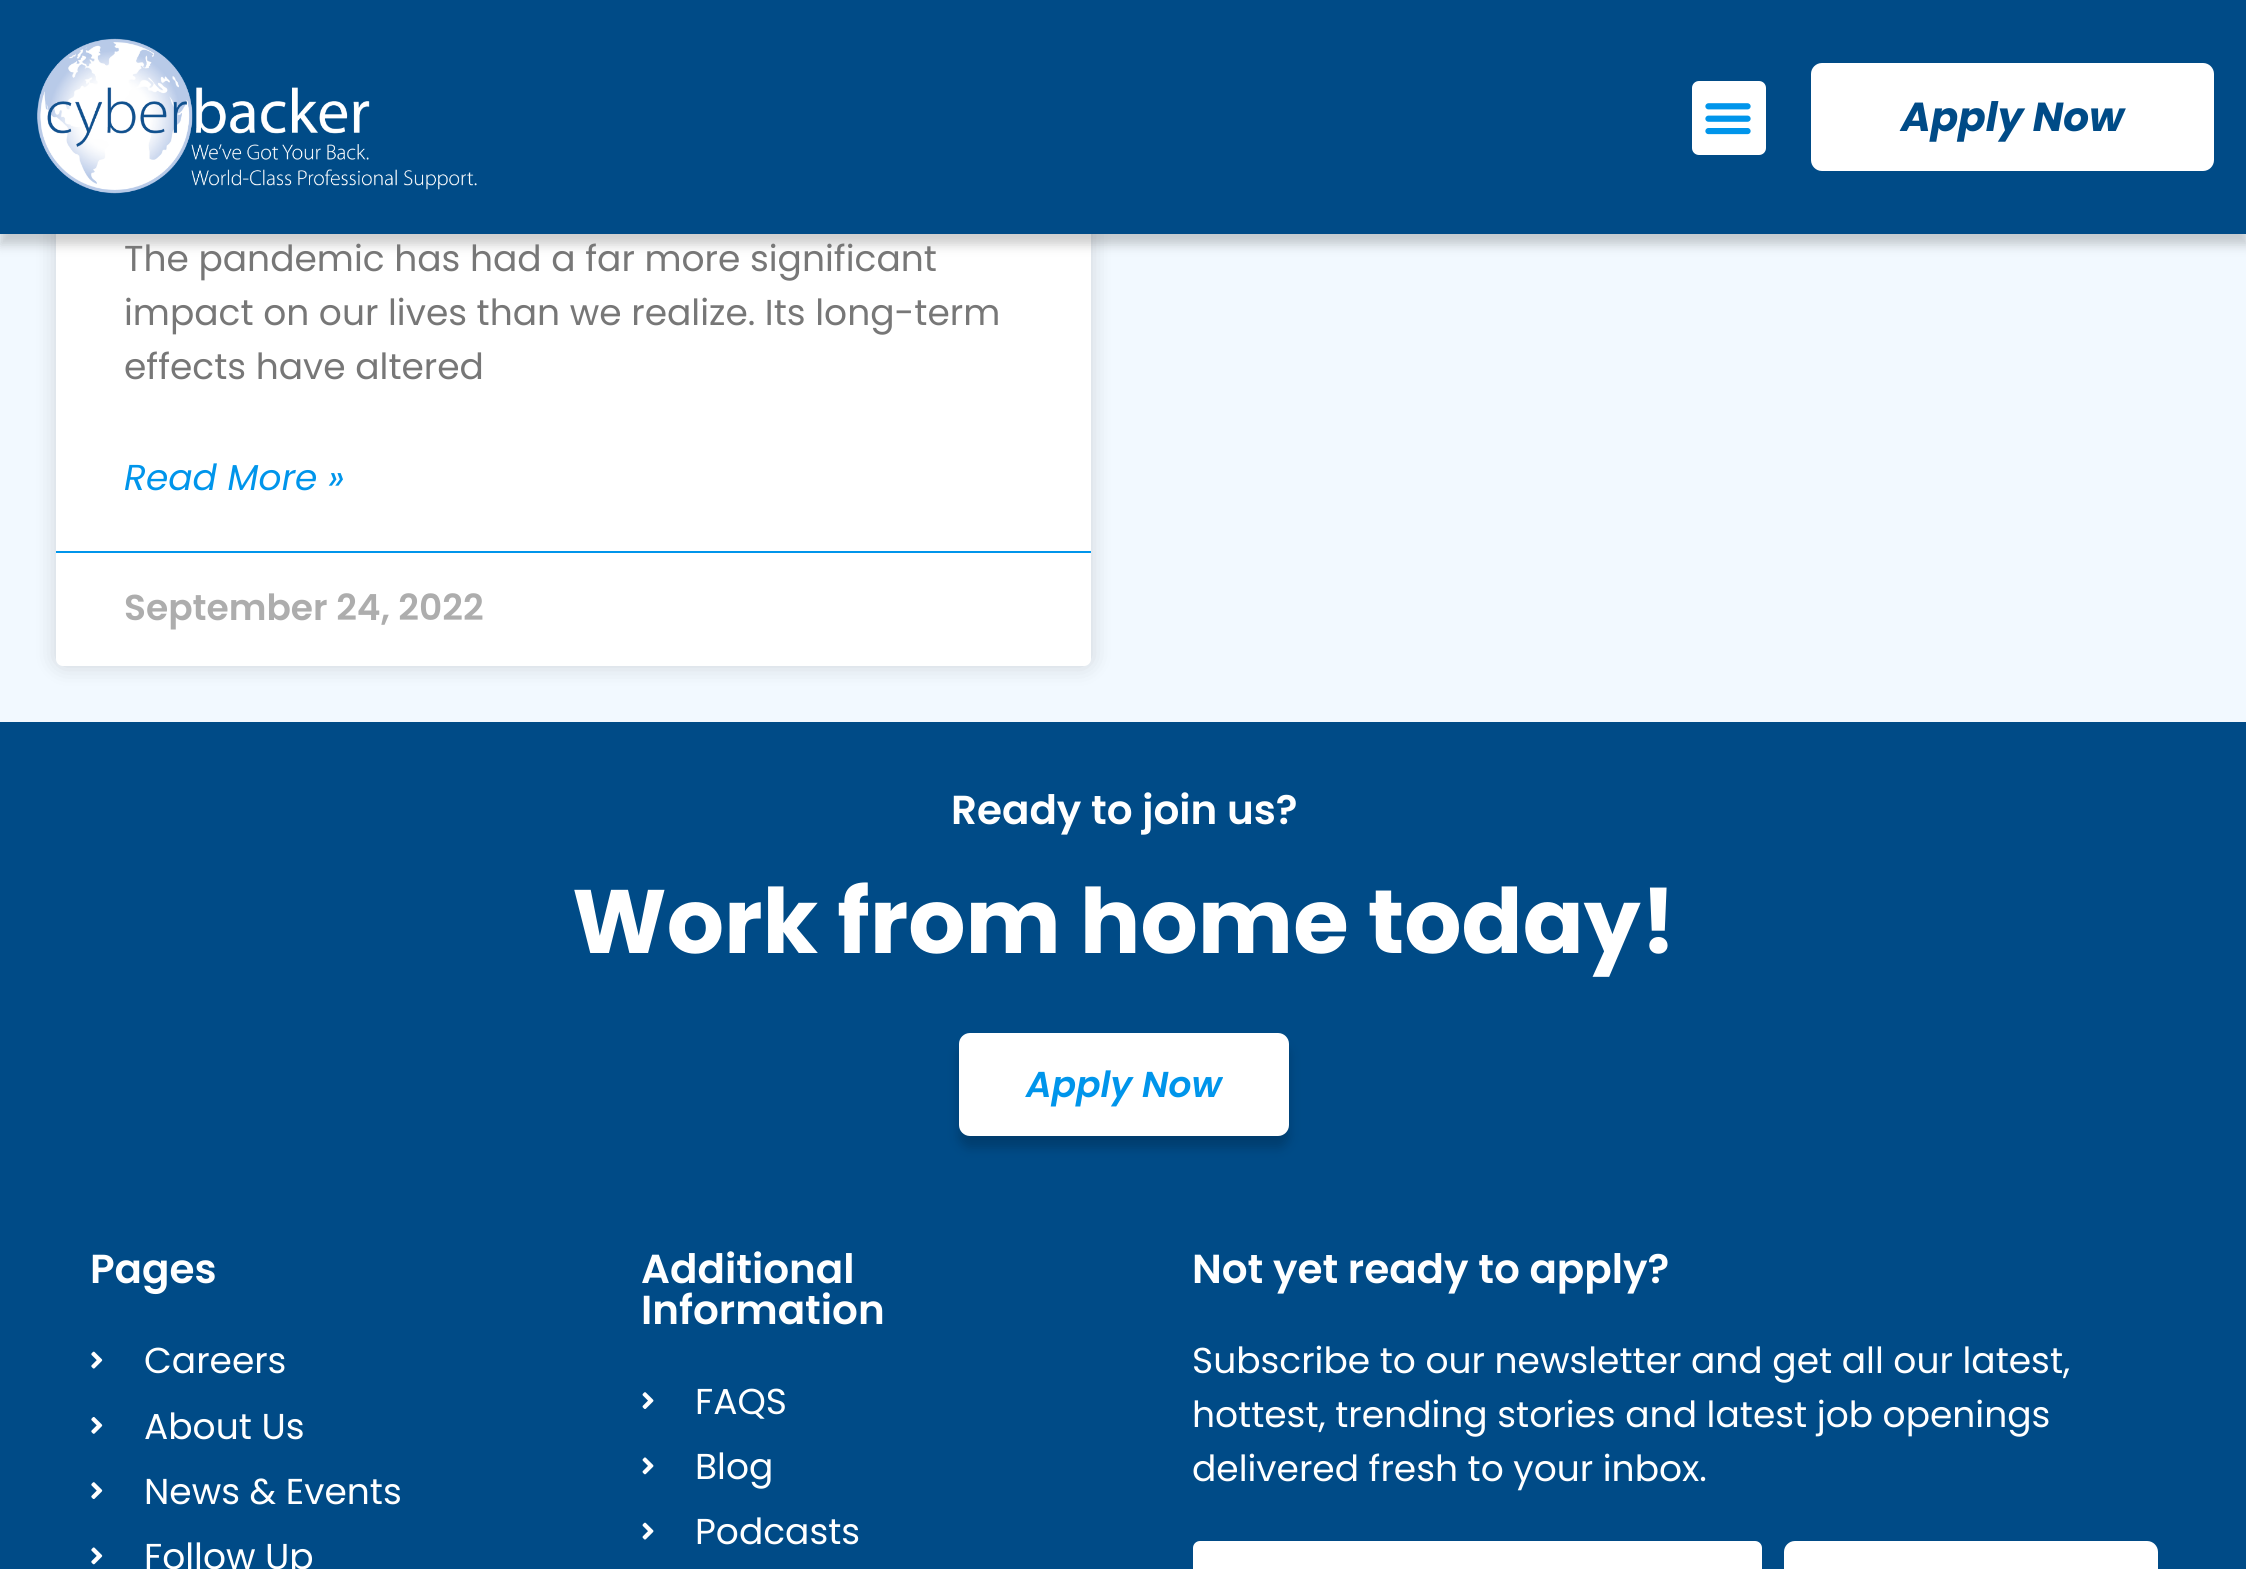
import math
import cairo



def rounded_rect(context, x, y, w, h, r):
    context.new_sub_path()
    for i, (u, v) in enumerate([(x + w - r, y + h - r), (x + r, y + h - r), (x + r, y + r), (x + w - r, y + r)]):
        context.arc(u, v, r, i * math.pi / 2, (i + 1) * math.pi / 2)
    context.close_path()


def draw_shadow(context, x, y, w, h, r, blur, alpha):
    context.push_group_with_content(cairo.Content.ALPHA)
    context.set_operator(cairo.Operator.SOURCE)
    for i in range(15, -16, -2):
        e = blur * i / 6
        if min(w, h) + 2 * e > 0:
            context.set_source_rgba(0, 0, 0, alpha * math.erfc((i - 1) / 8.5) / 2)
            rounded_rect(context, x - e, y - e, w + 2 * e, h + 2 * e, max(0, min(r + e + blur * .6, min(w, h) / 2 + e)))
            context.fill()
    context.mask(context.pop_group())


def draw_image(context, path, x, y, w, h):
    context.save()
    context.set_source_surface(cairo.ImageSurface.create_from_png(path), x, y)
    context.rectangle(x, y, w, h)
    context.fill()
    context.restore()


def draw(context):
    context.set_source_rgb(242 / 255, 249 / 255, 1)
    context.paint()
    context.set_source_rgb(0, 0, 0)
    draw_shadow(context, 56, 27, 1035, 639, 7, 11, 0.15)
    context.set_source_rgb(1, 1, 1)
    rounded_rect(context, 56, 27, 1035, 639, 7)
    context.fill()
    context.set_source_rgb(0, 0, 0)
    draw_shadow(context, 0, 11, 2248, 234, 0, 5.5, 0.19)
    context.set_source_rgb(0, 75 / 255, 135 / 255)
    context.rectangle(0, 0, 2246, 234)
    context.fill()
    draw_image(context, "images/1.png", 37, 38, 440, 156)
    context.set_source_rgb(1, 1, 1)
    rounded_rect(context, 1692, 81, 74, 74, 7)
    context.fill()
    draw_image(context, "images/2.png", 1705, 103, 46, 32)
    rounded_rect(context, 1811, 63, 403, 108, 11)
    context.fill()
    context.set_source_rgb(0, 149 / 255, 235 / 255)
    context.rectangle(56, 551, 1035, 2)
    context.fill()
    context.set_source_rgb(0, 75 / 255, 135 / 255)
    context.rectangle(0, 722, 2246, 847)
    context.fill()
    context.set_source_rgb(0, 0, 0)
    draw_shadow(context, 959, 1044, 330, 104, 11, 5.5, 0.19)
    context.set_source_rgb(1, 1, 1)
    rounded_rect(context, 959, 1033, 330, 103, 11)
    context.fill()
    draw_image(context, "images/3.png", 91, 1351, 12, 18)
    draw_image(context, "images/4.png", 91, 1417, 12, 17)
    draw_image(context, "images/5.png", 91, 1482, 12, 17)
    draw_image(context, "images/6.png", 91, 1547, 12, 18)
    draw_image(context, "images/7.png", 642, 1392, 12, 17)
    draw_image(context, "images/8.png", 642, 1457, 12, 18)
    draw_image(context, "images/9.png", 642, 1522, 12, 18)
    rounded_rect(context, 1193, 1541, 569, 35, 7)
    context.fill()
    rounded_rect(context, 1784, 1541, 374, 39, 11)
    context.fill()
    context.select_font_face("Poppins", cairo.FontSlant.ITALIC, cairo.FontWeight.BOLD)
    context.set_font_size(40.5)
    context.set_source_rgb(0, 75 / 255, 135 / 255)
    context.move_to(1901, 131)
    context.show_text("Apply Now")
    context.select_font_face("Poppins")
    context.set_font_size(36)
    context.set_source_rgb(119 / 255, 119 / 255, 119 / 255)
    context.move_to(124, 271)
    context.show_text("The pandemic has had a far more significant")
    context.move_to(124, 325)
    context.show_text("impact on our lives than we realize. Its long-term")
    context.move_to(124, 379)
    context.show_text("effects have altered")
    context.select_font_face("Poppins", cairo.FontSlant.ITALIC)
    context.set_source_rgb(0, 149 / 255, 235 / 255)
    context.move_to(124, 490)
    context.show_text("Read More »")
    context.select_font_face("Poppins SemiBold")
    context.set_source_rgb(173 / 255, 173 / 255, 173 / 255)
    context.move_to(124, 620)
    context.show_text("September 24, 2022")
    context.set_font_size(40.5)
    context.set_source_rgb(1, 1, 1)
    context.move_to(951, 824)
    context.show_text("Ready to join us?")
    context.select_font_face("Poppins", cairo.FontSlant.NORMAL, cairo.FontWeight.BOLD)
    context.set_font_size(90)
    context.move_to(572, 953)
    context.show_text("Work from home today!")
    context.select_font_face("Poppins SemiBold", cairo.FontSlant.ITALIC)
    context.set_font_size(36)
    context.set_source_rgb(0, 149 / 255, 235 / 255)
    context.move_to(1026, 1097)
    context.show_text("Apply Now")
    context.select_font_face("Poppins SemiBold")
    context.set_font_size(40.5)
    context.set_source_rgb(1, 1, 1)
    context.move_to(90, 1283)
    context.show_text("Pages")
    context.select_font_face("Poppins")
    context.set_font_size(36)
    context.move_to(144, 1373)
    context.show_text("Careers")
    context.move_to(144, 1439)
    context.show_text("About Us")
    context.move_to(144, 1504)
    context.show_text("News & Events")
    context.move_to(144, 1569)
    context.show_text("Follow Up")
    context.select_font_face("Poppins SemiBold")
    context.set_font_size(40.5)
    context.move_to(641, 1283)
    context.show_text("Additional")
    context.move_to(641, 1324)
    context.show_text("Information")
    context.select_font_face("Poppins")
    context.set_font_size(36)
    context.move_to(695, 1414)
    context.show_text("FAQS")
    context.move_to(695, 1479)
    context.show_text("Blog")
    context.move_to(695, 1544)
    context.show_text("Podcasts")
    context.select_font_face("Poppins SemiBold")
    context.set_font_size(40.5)
    context.move_to(1192, 1283)
    context.show_text("Not yet ready to apply?")
    context.select_font_face("Poppins")
    context.set_font_size(36)
    context.move_to(1192, 1373)
    context.show_text("Subscribe to our newsletter and get all our latest,")
    context.move_to(1192, 1427)
    context.show_text("hottest, trending stories and latest job openings")
    context.move_to(1192, 1481)
    context.show_text("delivered fresh to your inbox.")


surface = cairo.ImageSurface(cairo.Format.RGB24, 2246, 1569)
context = cairo.Context(surface)
options = cairo.FontOptions()
options.set_hint_metrics(cairo.HintMetrics.OFF)
options.set_hint_style(cairo.HintStyle.NONE)
context.set_font_options(options)
context.set_miter_limit(4)
draw(context)
surface.write_to_png("out.png")
